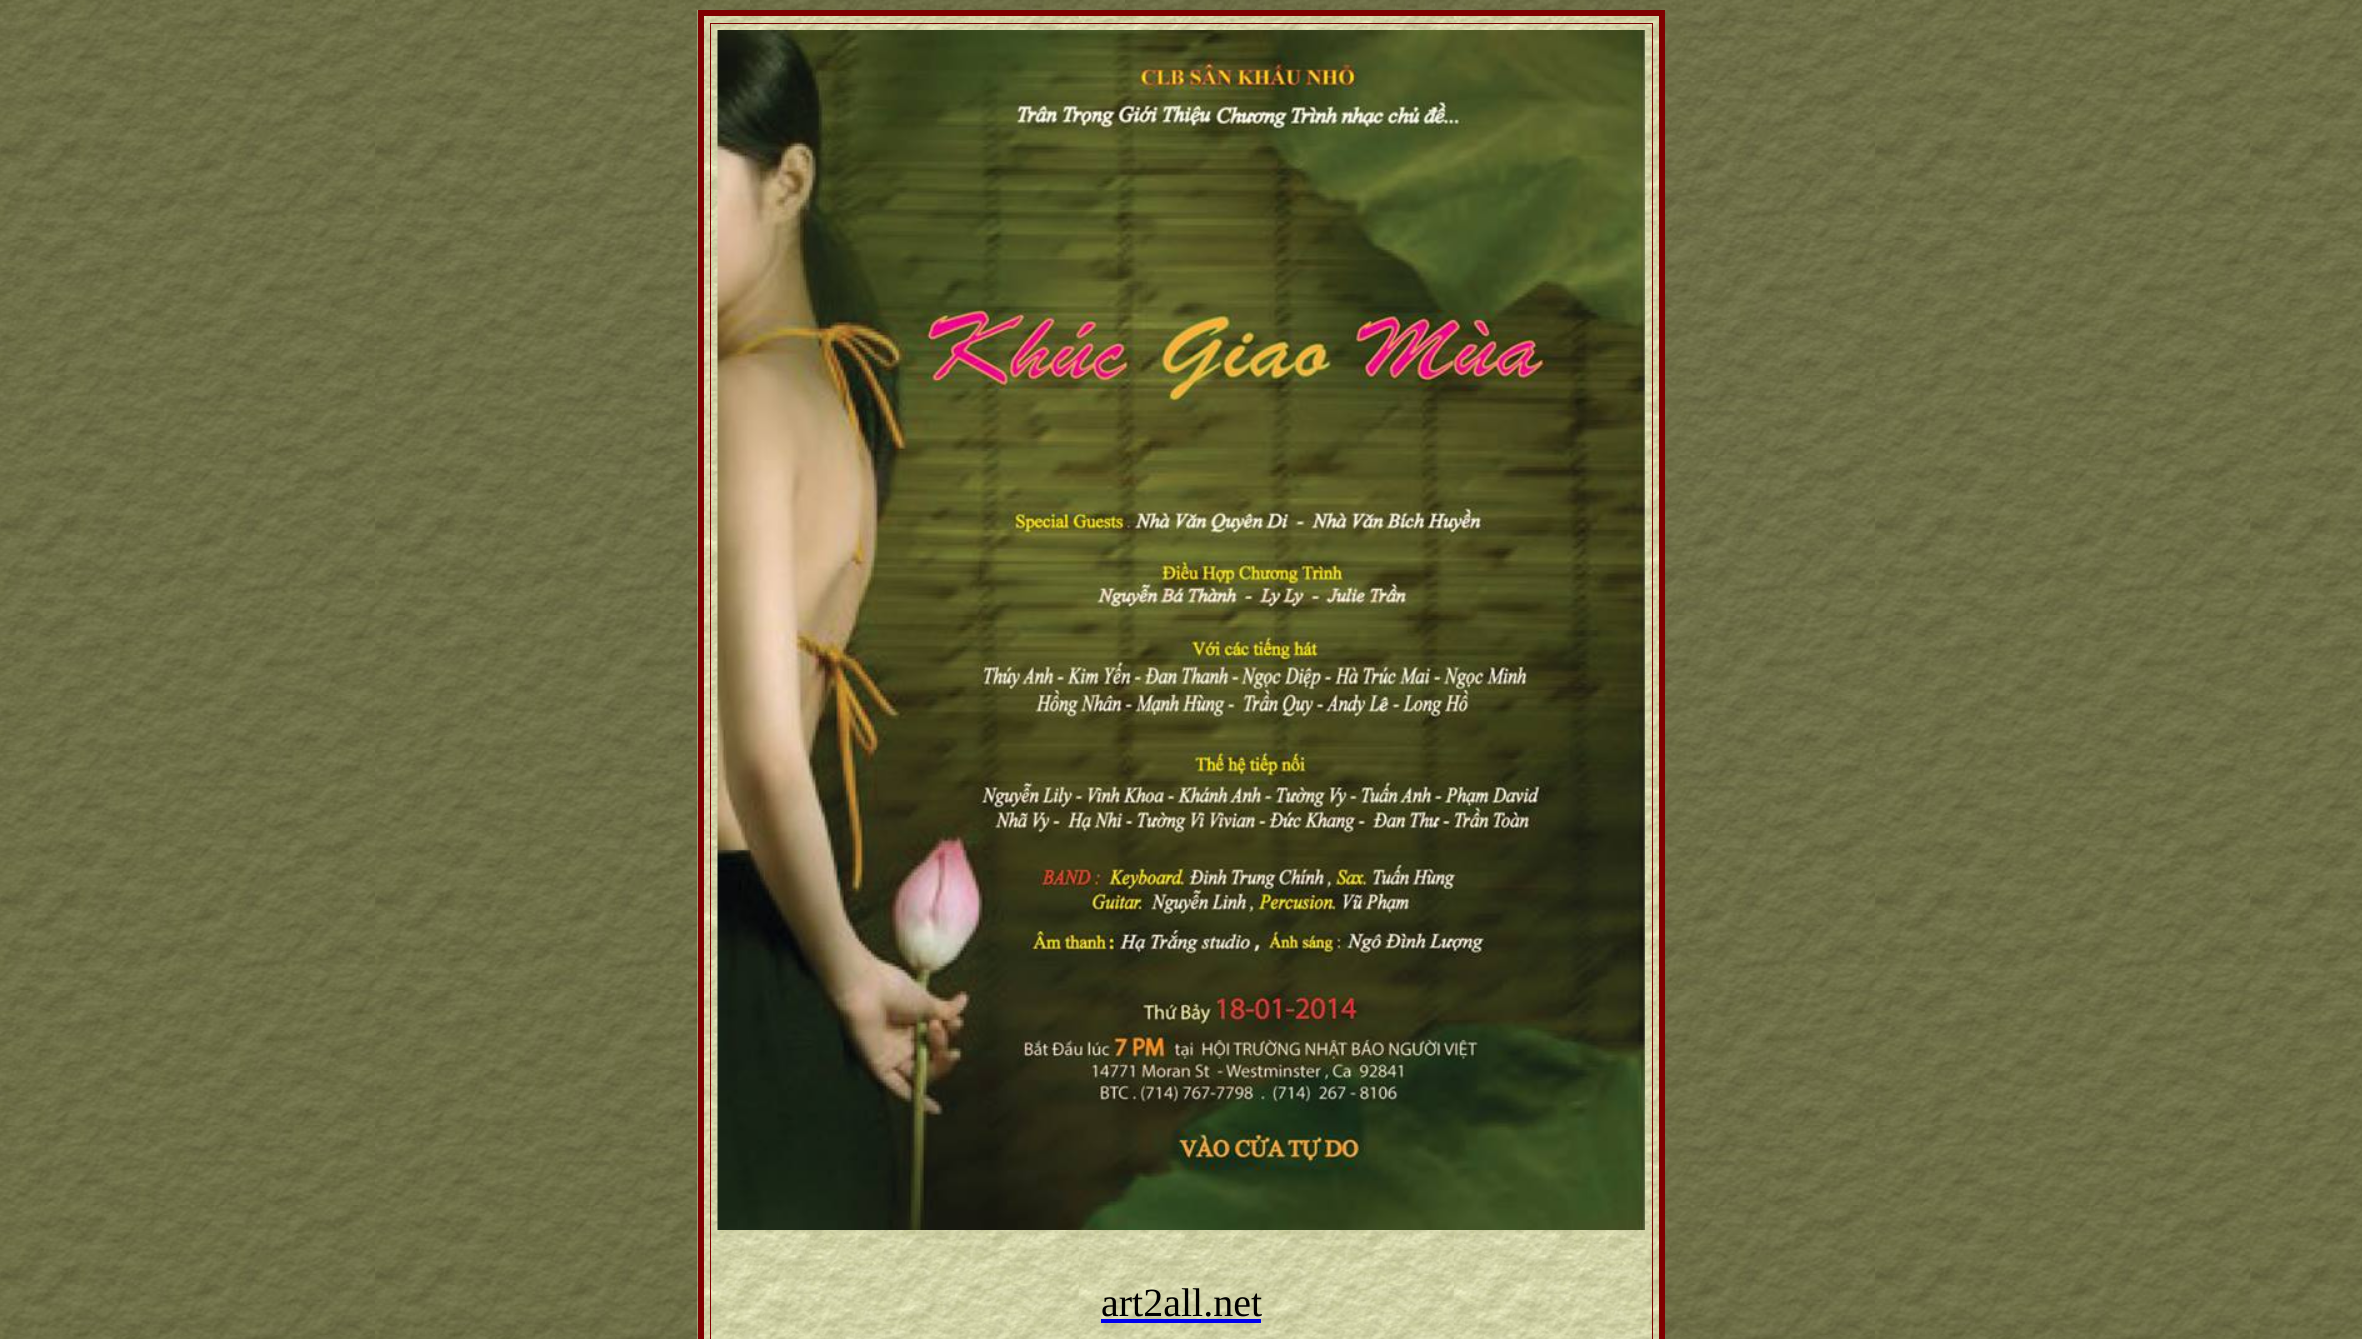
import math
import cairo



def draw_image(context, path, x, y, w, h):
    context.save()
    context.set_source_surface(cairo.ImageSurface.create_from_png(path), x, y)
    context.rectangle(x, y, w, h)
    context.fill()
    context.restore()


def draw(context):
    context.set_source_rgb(1, 1, 1)
    context.paint()
    draw_image(context, "images/1.png", 0, 0, 2362, 1339)
    draw_image(context, "images/2.png", 697, 10, 962, 1329)
    context.rectangle(701, 13, 961, 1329)
    context.set_source_rgb(128 / 255, 0, 0)
    context.set_line_width(6)
    context.stroke()
    context.rectangle(710.5, 23.5, 942, 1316)
    context.set_line_width(1)
    context.stroke()
    draw_image(context, "images/3.png", 717, 30, 928, 1200)
    context.set_source_rgb(0, 0, 238 / 255)
    context.rectangle(1101, 1319, 160, 4)
    context.fill()
    context.select_font_face("Liberation Serif")
    context.set_font_size(40)
    context.set_source_rgb(0, 0, 0)
    context.move_to(1101, 1316)
    context.show_text("art2all.net")


surface = cairo.ImageSurface(cairo.Format.RGB24, 2362, 1339)
context = cairo.Context(surface)
options = cairo.FontOptions()
options.set_hint_metrics(cairo.HintMetrics.OFF)
options.set_hint_style(cairo.HintStyle.NONE)
context.set_font_options(options)
context.set_miter_limit(4)
draw(context)
surface.write_to_png("out.png")
